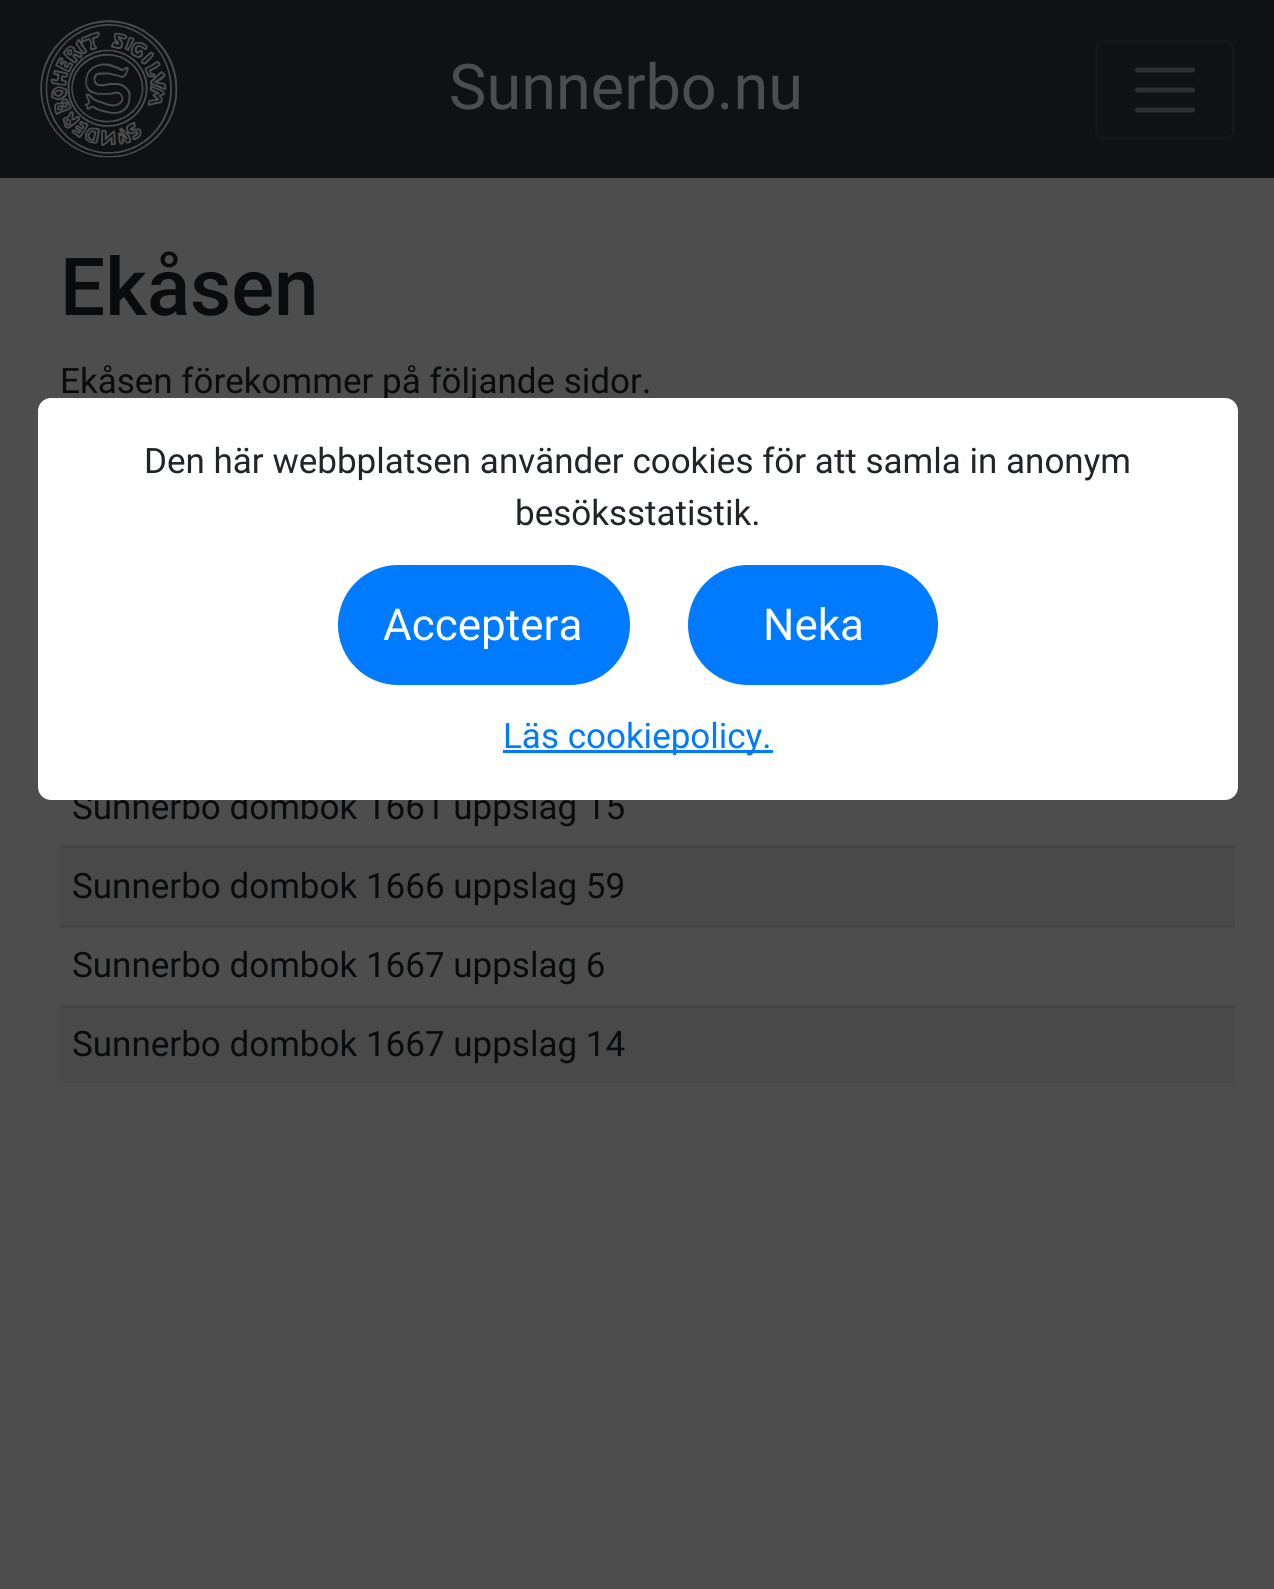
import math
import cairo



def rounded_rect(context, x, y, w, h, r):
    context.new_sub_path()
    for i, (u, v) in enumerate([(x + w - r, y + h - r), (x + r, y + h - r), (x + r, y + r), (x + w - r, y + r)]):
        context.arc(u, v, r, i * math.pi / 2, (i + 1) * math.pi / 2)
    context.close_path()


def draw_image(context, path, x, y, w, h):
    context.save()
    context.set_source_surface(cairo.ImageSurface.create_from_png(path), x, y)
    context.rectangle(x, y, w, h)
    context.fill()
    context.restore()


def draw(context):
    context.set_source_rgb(77 / 255, 77 / 255, 77 / 255)
    context.paint()
    context.set_source_rgb(16 / 255, 17 / 255, 19 / 255)
    context.rectangle(0, 0, 1274, 178)
    context.fill()
    draw_image(context, "images/1.png", 40, 20, 138, 138)
    rounded_rect(context, 1096.5, 41.5, 137, 97, 8.5)
    context.set_source_rgb(22 / 255, 23 / 255, 25 / 255)
    context.set_line_width(3)
    context.stroke()
    context.new_path()
    context.move_to(1137.5, 70)
    context.line_to(1192.5, 70)
    context.move_to(1137.5, 90)
    context.line_to(1192.5, 90)
    context.move_to(1137.5, 110)
    context.line_to(1192.5, 110)
    context.set_source_rgb(46 / 255, 47 / 255, 48 / 255)
    context.set_line_width(5)
    context.set_line_cap(cairo.LineCap.ROUND)
    context.stroke()
    context.set_source_rgb(73 / 255, 73 / 255, 73 / 255)
    context.rectangle(60, 848, 1175, 77)
    context.fill()
    context.set_source_rgb(67 / 255, 68 / 255, 69 / 255)
    context.rectangle(60, 845, 1175, 3)
    context.fill()
    context.rectangle(60, 925, 1175, 3)
    context.fill()
    context.set_source_rgb(73 / 255, 73 / 255, 73 / 255)
    context.rectangle(60, 1008, 1175, 75)
    context.fill()
    context.set_source_rgb(67 / 255, 68 / 255, 69 / 255)
    context.rectangle(60, 1005, 1175, 3)
    context.fill()
    context.select_font_face("Roboto")
    context.set_font_size(63)
    context.set_source_rgb(77 / 255, 77 / 255, 77 / 255)
    context.move_to(449, 109)
    context.show_text("Sunnerbo.nu")
    context.select_font_face("Roboto Medium")
    context.set_font_size(80)
    context.set_source_rgb(10 / 255, 11 / 255, 12 / 255)
    context.move_to(60, 315)
    context.show_text("Ekåsen")
    context.select_font_face("Roboto")
    context.set_font_size(35)
    context.move_to(60, 393)
    context.show_text("Ekåsen förekommer på följande sidor.")
    context.move_to(72, 819)
    context.show_text("Sunnerbo dombok 1661 uppslag 15")
    context.move_to(72, 898)
    context.show_text("Sunnerbo dombok 1666 uppslag 59")
    context.move_to(72, 977)
    context.show_text("Sunnerbo dombok 1667 uppslag 6")
    context.move_to(72, 1056)
    context.show_text("Sunnerbo dombok 1667 uppslag 14")
    context.set_source_rgb(1, 1, 1)
    rounded_rect(context, 38, 398, 1200, 402, 13)
    context.fill()
    context.set_source_rgb(33 / 255, 37 / 255, 41 / 255)
    context.move_to(144, 473)
    context.show_text("Den här webbplatsen använder cookies för att samla in anonym")
    context.move_to(515, 525)
    context.show_text("besöksstatistik.")
    context.set_source_rgb(0, 123 / 255, 1)
    rounded_rect(context, 339.5, 566.5, 289, 117, 58.5)
    context.fill_preserve()
    context.set_line_width(3)
    context.set_line_cap(cairo.LineCap.BUTT)
    context.stroke()
    context.set_font_size(44)
    context.set_source_rgb(1, 1, 1)
    context.move_to(383, 640)
    context.show_text("Acceptera")
    context.set_source_rgb(0, 123 / 255, 1)
    rounded_rect(context, 689.5, 566.5, 247, 117, 58.5)
    context.fill_preserve()
    context.stroke()
    context.set_source_rgb(1, 1, 1)
    context.move_to(763, 640)
    context.show_text("Neka")
    context.set_source_rgb(0, 123 / 255, 1)
    context.rectangle(503, 750, 270, 3)
    context.fill()
    context.set_font_size(35)
    context.move_to(503, 748)
    context.show_text("Läs cookiepolicy.")


surface = cairo.ImageSurface(cairo.Format.RGB24, 1274, 1589)
context = cairo.Context(surface)
options = cairo.FontOptions()
options.set_hint_metrics(cairo.HintMetrics.OFF)
options.set_hint_style(cairo.HintStyle.NONE)
context.set_font_options(options)
context.set_miter_limit(4)
draw(context)
surface.write_to_png("out.png")
